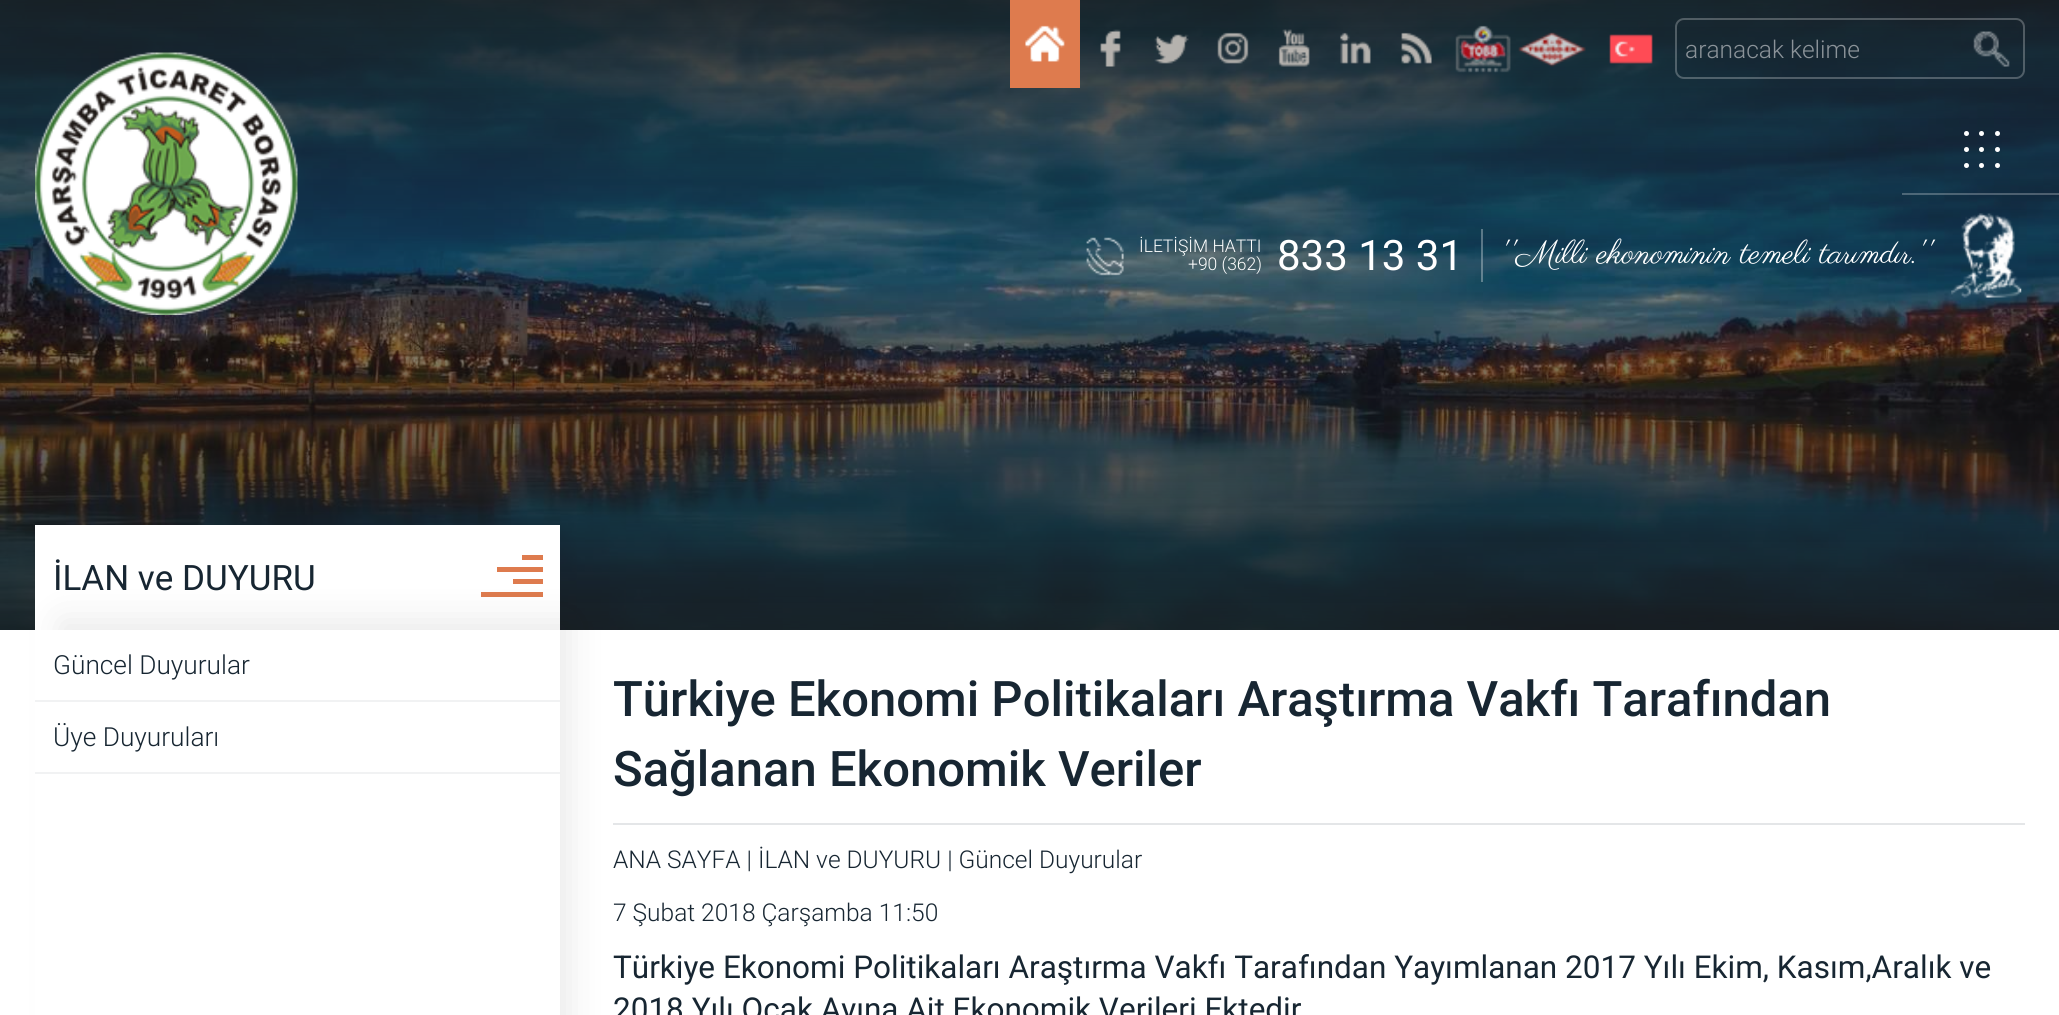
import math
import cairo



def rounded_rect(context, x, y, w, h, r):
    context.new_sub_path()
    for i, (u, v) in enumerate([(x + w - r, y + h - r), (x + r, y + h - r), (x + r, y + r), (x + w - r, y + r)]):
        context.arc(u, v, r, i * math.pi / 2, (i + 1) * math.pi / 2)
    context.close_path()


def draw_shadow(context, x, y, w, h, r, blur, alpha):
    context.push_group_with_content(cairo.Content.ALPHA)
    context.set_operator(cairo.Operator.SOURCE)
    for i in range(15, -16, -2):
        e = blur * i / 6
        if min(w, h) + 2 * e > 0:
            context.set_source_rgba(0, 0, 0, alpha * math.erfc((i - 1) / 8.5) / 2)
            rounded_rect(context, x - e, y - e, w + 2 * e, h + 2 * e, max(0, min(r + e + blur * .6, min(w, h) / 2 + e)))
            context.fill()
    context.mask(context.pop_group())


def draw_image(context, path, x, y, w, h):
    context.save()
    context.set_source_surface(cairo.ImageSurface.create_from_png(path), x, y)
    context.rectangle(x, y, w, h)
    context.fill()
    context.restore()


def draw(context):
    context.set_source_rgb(1, 1, 1)
    context.paint()
    draw_image(context, "images/15.png", 0, 0, 2059, 630)
    context.set_source_rgb(222 / 255, 123 / 255, 78 / 255)
    context.rectangle(1010, 0, 70, 88)
    context.fill()
    draw_image(context, "images/1.png", 1025, 25, 40, 37)
    draw_image(context, "images/2.png", 1100, 29, 21, 38)
    draw_image(context, "images/3.png", 1154, 34, 35, 30)
    draw_image(context, "images/4.png", 1217, 32, 32, 32)
    draw_image(context, "images/5.png", 1278, 29, 32, 38)
    draw_image(context, "images/6.png", 1340, 32, 31, 32)
    draw_image(context, "images/7.png", 1401, 32, 31, 32)
    draw_image(context, "images/8.png", 1455, 25, 56, 48)
    draw_image(context, "images/9.png", 1518, 32, 68, 35)
    draw_image(context, "images/10.png", 1609, 34, 44, 30)
    rounded_rect(context, 1676, 19, 348, 59, 8)
    context.set_source_rgba(1, 1, 1, 0.25)
    context.stroke()
    draw_image(context, "images/11.png", 1973, 31, 37, 36)
    draw_image(context, "images/12.png", 35, 52, 263, 263)
    context.rectangle(1902, 193, 157, 2)
    context.fill()
    context.set_source_rgb(1, 1, 1)
    context.arc(1966.5, 133.5, 2.5, 0, 2 * math.pi)
    context.fill()
    context.arc(1981.5, 133.5, 2.5, 0, 2 * math.pi)
    context.fill()
    context.arc(1997.5, 133.5, 2.5, 0, 2 * math.pi)
    context.fill()
    context.arc(1966.5, 149.5, 2.5, 0, 2 * math.pi)
    context.fill()
    context.arc(1981.5, 149.5, 2.5, 0, 2 * math.pi)
    context.fill()
    context.arc(1997.5, 149.5, 2.5, 0, 2 * math.pi)
    context.fill()
    context.arc(1966.5, 165.5, 2.5, 0, 2 * math.pi)
    context.fill()
    context.arc(1981.5, 165.5, 2.5, 0, 2 * math.pi)
    context.fill()
    context.arc(1997.5, 165.5, 2.5, 0, 2 * math.pi)
    context.fill()
    draw_image(context, "images/13.png", 1086, 237, 38, 39)
    context.set_source_rgba(1, 1, 1, 0.31)
    context.rectangle(1481, 229, 2, 53)
    context.fill()
    draw_image(context, "images/14.png", 1951, 213, 71, 85)
    context.set_source_rgb(1, 1, 1)
    context.rectangle(35, 525, 525, 105)
    context.fill()
    context.set_source_rgb(222 / 255, 123 / 255, 78 / 255)
    context.rectangle(522, 555, 21, 5)
    context.fill()
    context.rectangle(497, 567, 46, 5)
    context.fill()
    context.rectangle(513, 579, 30, 5)
    context.fill()
    context.rectangle(481, 592, 62, 5)
    context.fill()
    context.set_source_rgb(228 / 255, 230 / 255, 232 / 255)
    context.rectangle(613, 823, 1412, 2)
    context.fill()
    context.save()
    context.set_fill_rule(cairo.FillRule.EVEN_ODD)
    context.new_path()
    context.move_to(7, 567)
    context.line_to(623, 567)
    context.line_to(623, 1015)
    context.line_to(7, 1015)
    context.close_path()
    context.move_to(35, 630)
    context.line_to(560, 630)
    context.line_to(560, 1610)
    context.line_to(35, 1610)
    context.close_path()
    context.clip()
    context.set_source_rgb(26 / 255, 26 / 255, 26 / 255)
    draw_shadow(context, 61, 621, 508, 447, 0, 17.5, 0.1)
    context.restore()
    context.set_source_rgb(241 / 255, 242 / 255, 243 / 255)
    context.rectangle(35, 700, 525, 2)
    context.fill()
    context.rectangle(35, 772, 525, 2)
    context.fill()
    context.select_font_face("Roboto Light")
    context.set_font_size(24.5)
    context.set_source_rgb(139 / 255, 147 / 255, 153 / 255)
    context.move_to(1685, 58)
    context.show_text("aranacak kelime")
    context.set_font_size(17.5)
    context.set_source_rgb(1, 1, 1)
    context.move_to(1139, 252)
    context.show_text("İLETİŞİM HATTI")
    context.move_to(1188, 270)
    context.show_text("+90 (362)")
    context.select_font_face("Roboto")
    context.set_font_size(42)
    context.move_to(1277, 270)
    context.show_text("833 13 31")
    context.select_font_face("Parisienne")
    context.set_font_size(33.25)
    context.move_to(1500, 263)
    context.show_text("''Milli ekonominin temeli tarımdır.''")
    context.select_font_face("Roboto")
    context.set_font_size(35)
    context.set_source_rgb(23 / 255, 38 / 255, 50 / 255)
    context.move_to(53, 590)
    context.show_text("İLAN ve DUYURU")
    context.select_font_face("Roboto Light")
    context.set_font_size(26.25)
    context.move_to(53, 674)
    context.show_text("Güncel Duyurular")
    context.move_to(53, 746)
    context.show_text("Üye Duyuruları")
    context.select_font_face("Roboto Medium")
    context.set_font_size(49)
    context.move_to(613, 716)
    context.show_text("Türkiye Ekonomi Politikaları Araştırma Vakfı Tarafından")
    context.move_to(613, 786)
    context.show_text("Sağlanan Ekonomik Veriler")
    context.select_font_face("Roboto Light")
    context.set_font_size(24.5)
    context.move_to(613, 868)
    context.show_text("ANA SAYFA | İLAN ve DUYURU | Güncel Duyurular")
    context.move_to(613, 921)
    context.show_text("7 Şubat 2018 Çarşamba 11:50")
    context.select_font_face("Roboto")
    context.set_font_size(31.5)
    context.move_to(613, 978)
    context.show_text("Türkiye Ekonomi Politikaları Araştırma Vakfı Tarafından Yayımlanan 2017 Yılı Ekim, Kasım,Aralık ve")
    context.move_to(613, 1020)
    context.show_text("2018 Yılı Ocak Ayına Ait Ekonomik Verileri Ektedir")


surface = cairo.ImageSurface(cairo.Format.RGB24, 2059, 1015)
context = cairo.Context(surface)
options = cairo.FontOptions()
options.set_hint_metrics(cairo.HintMetrics.OFF)
options.set_hint_style(cairo.HintStyle.NONE)
context.set_font_options(options)
context.set_miter_limit(4)
draw(context)
surface.write_to_png("out.png")
